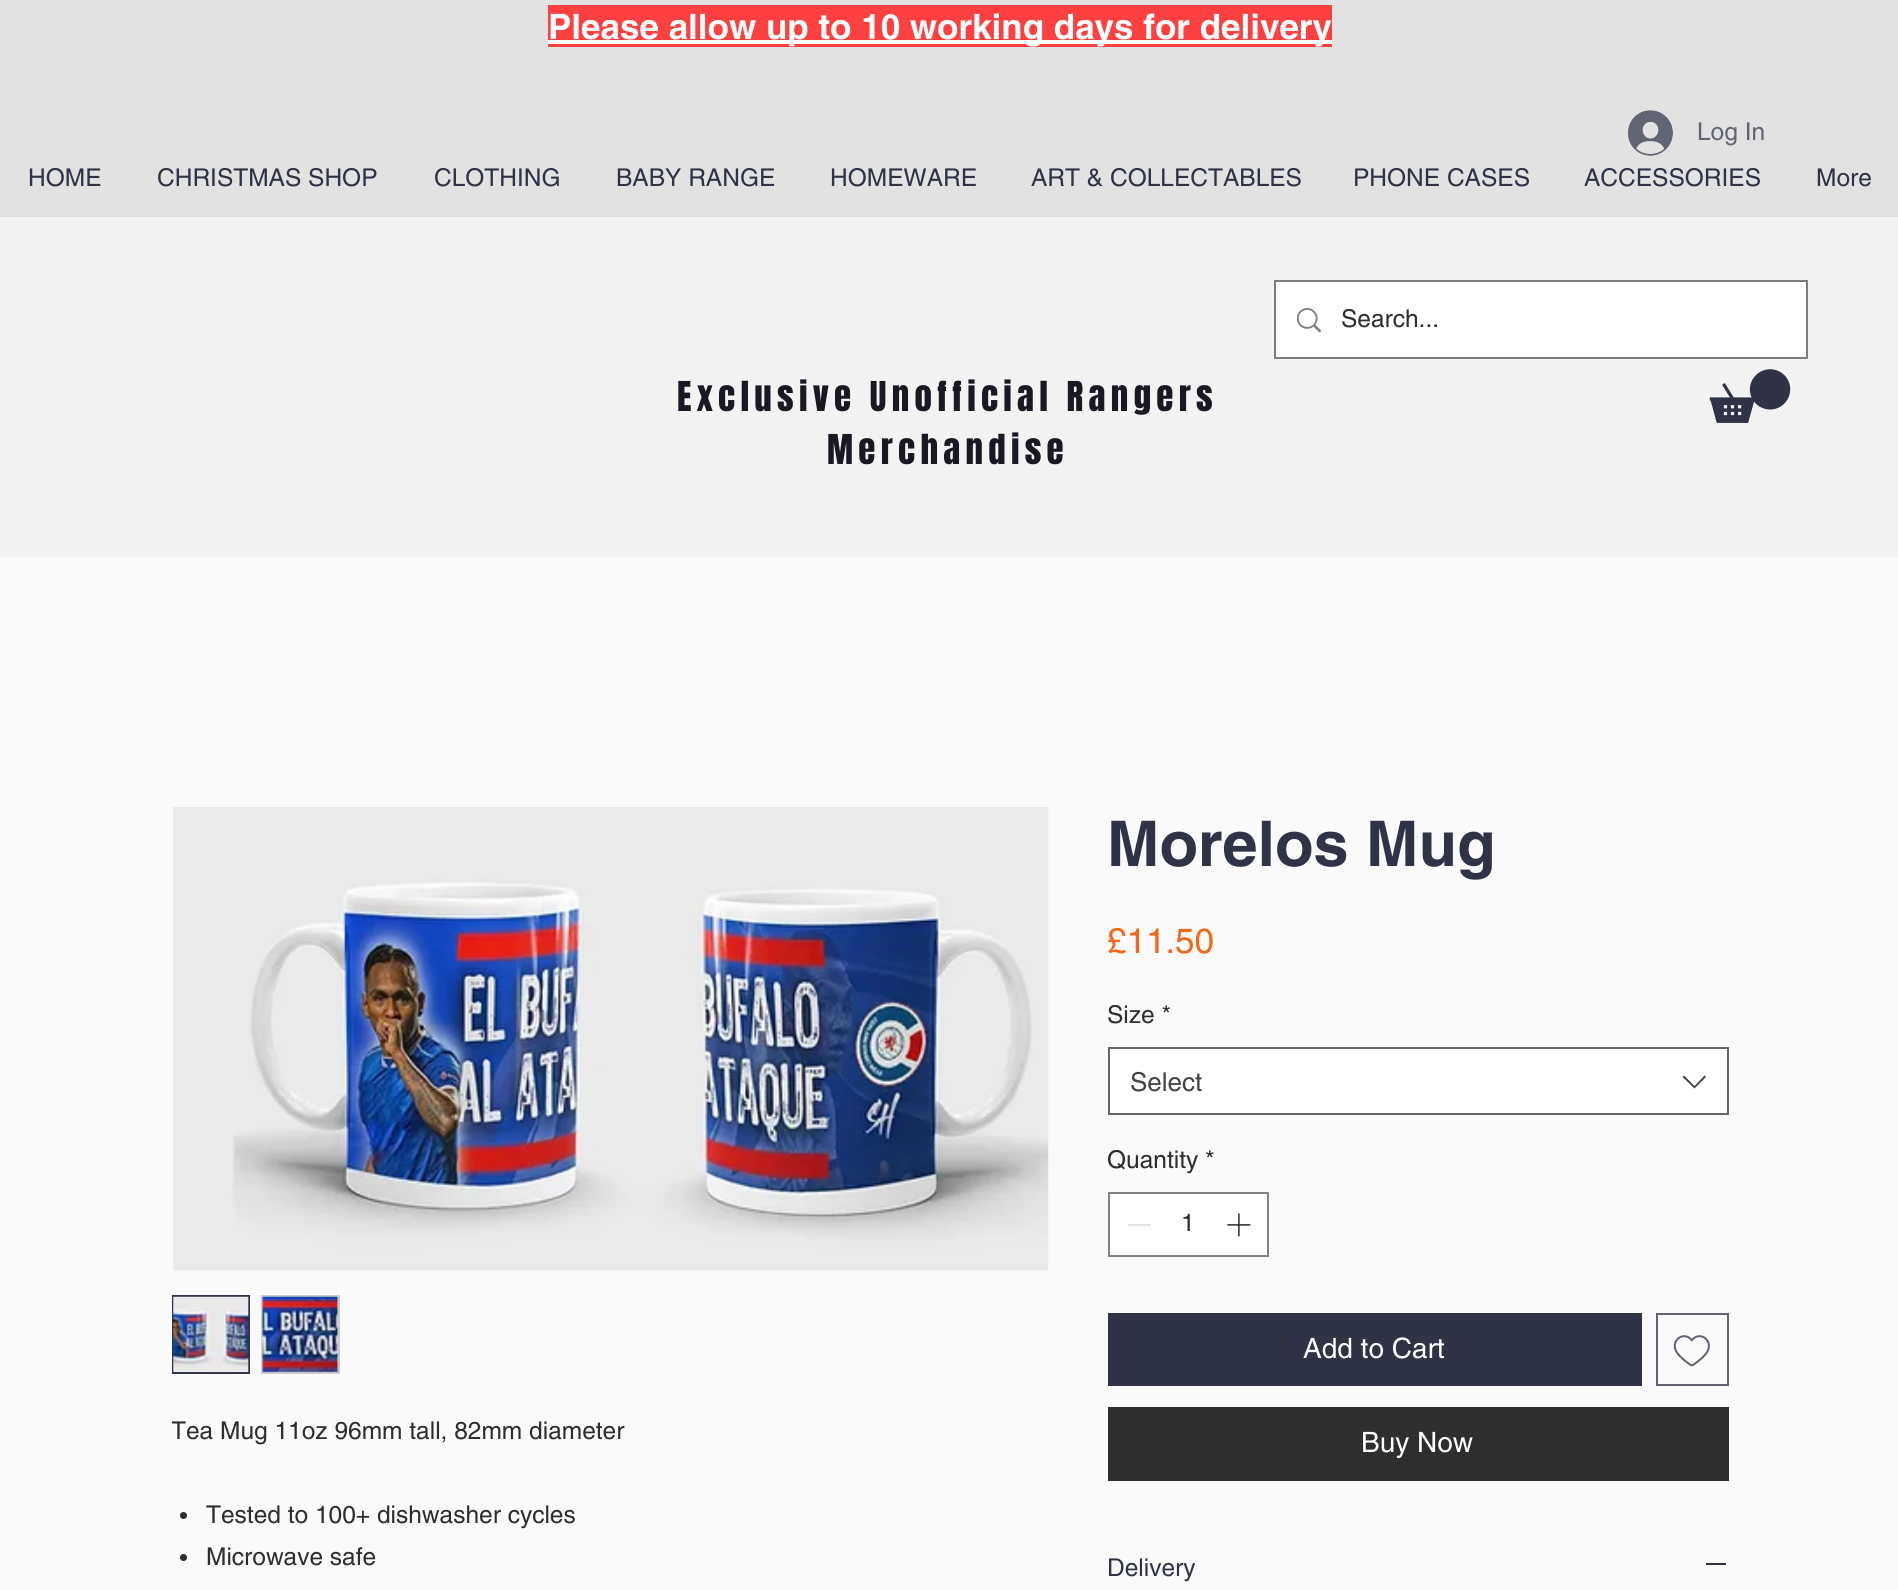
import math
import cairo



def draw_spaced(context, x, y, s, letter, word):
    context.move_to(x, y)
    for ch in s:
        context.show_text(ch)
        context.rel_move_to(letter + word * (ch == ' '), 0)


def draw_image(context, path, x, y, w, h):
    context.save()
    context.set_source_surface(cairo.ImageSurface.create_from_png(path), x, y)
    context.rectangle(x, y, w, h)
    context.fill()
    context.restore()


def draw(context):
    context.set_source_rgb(250 / 255, 250 / 255, 250 / 255)
    context.paint()
    context.set_source_rgb(226 / 255, 226 / 255, 226 / 255)
    context.rectangle(0, 0, 1898, 217)
    context.fill()
    context.set_source_rgb(1, 64 / 255, 64 / 255)
    context.rectangle(548, 5, 784, 42)
    context.fill()
    context.set_source_rgb(1, 1, 1)
    context.rectangle(548, 40, 784, 4)
    context.fill()
    draw_image(context, "images/1.png", 1628, 110, 45, 46)
    context.set_source_rgb(243 / 255, 243 / 255, 243 / 255)
    context.rectangle(0, 217, 1898, 340)
    context.fill()
    context.rectangle(1275, 281, 532, 77)
    context.set_source_rgb(125 / 255, 125 / 255, 125 / 255)
    context.stroke()
    context.set_source_rgb(1, 1, 1)
    context.rectangle(1276, 282, 530, 75)
    context.fill()
    draw_image(context, "images/2.png", 1297, 308, 24, 25)
    draw_image(context, "images/3.png", 1709, 369, 82, 54)
    draw_image(context, "images/4.png", 173, 807, 876, 464)
    context.rectangle(173, 1296, 76, 77)
    context.set_source_rgb(47 / 255, 51 / 255, 69 / 255)
    context.stroke()
    draw_image(context, "images/5.png", 173, 1296, 76, 77)
    context.set_source_rgb(204 / 255, 204 / 255, 204 / 255)
    context.rectangle(261, 1295, 79, 79)
    context.fill()
    draw_image(context, "images/6.png", 262, 1296, 77, 77)
    context.set_source_rgb(47 / 255, 46 / 255, 46 / 255)
    context.arc(183.5, 1515.5, 3.5, 0, 2 * math.pi)
    context.fill()
    context.arc(183.5, 1557.5, 3.5, 0, 2 * math.pi)
    context.fill()
    context.set_source_rgb(1, 1, 1)
    context.rectangle(1109, 1048, 619, 66)
    context.fill_preserve()
    context.set_source_rgb(102 / 255, 102 / 255, 102 / 255)
    context.stroke()
    context.set_source_rgb(68 / 255, 68 / 255, 68 / 255)
    context.set_fill_rule(cairo.FillRule.EVEN_ODD)
    context.new_path()
    context.move_to(1704.5, 1075.5)
    context.line_to(1706, 1077)
    context.line_to(1694.5, 1088.5)
    context.line_to(1682.5, 1077)
    context.line_to(1684, 1075.5)
    context.line_to(1694.5, 1086)
    context.close_path()
    context.fill()
    context.set_source_rgb(1, 1, 1)
    context.rectangle(1109, 1193, 159, 63)
    context.fill_preserve()
    context.set_source_rgb(130 / 255, 130 / 255, 130 / 255)
    context.stroke()
    context.set_source_rgb(227 / 255, 227 / 255, 227 / 255)
    context.rectangle(1128, 1224, 23, 2)
    context.fill()
    draw_image(context, "images/7.png", 1227, 1213, 24, 24)
    context.set_source_rgb(47 / 255, 51 / 255, 69 / 255)
    context.rectangle(1108, 1313, 534, 73)
    context.fill()
    context.rectangle(1657, 1314, 71, 71)
    context.set_source_rgb(97 / 255, 100 / 255, 115 / 255)
    context.stroke()
    draw_image(context, "images/8.png", 1673, 1335, 37, 32)
    context.set_source_rgb(47 / 255, 46 / 255, 46 / 255)
    context.rectangle(1108, 1407, 621, 74)
    context.fill()
    context.set_source_rgb(47 / 255, 51 / 255, 69 / 255)
    context.rectangle(1706, 1563, 20, 2)
    context.fill()
    context.select_font_face("helvetica", cairo.FontSlant.NORMAL, cairo.FontWeight.BOLD)
    context.set_font_size(35)
    context.set_source_rgb(1, 1, 1)
    context.move_to(548, 39)
    context.show_text("Please allow up to 10 working days for delivery")
    context.select_font_face("helvetica")
    context.set_font_size(24.5)
    context.set_source_rgb(47 / 255, 51 / 255, 69 / 255)
    context.move_to(28, 186)
    context.show_text("HOME")
    context.move_to(157, 186)
    context.show_text("CHRISTMAS SHOP")
    context.move_to(434, 186)
    context.show_text("CLOTHING")
    context.move_to(616, 186)
    context.show_text("BABY RANGE")
    context.move_to(830, 186)
    context.show_text("HOMEWARE")
    context.move_to(1031, 186)
    context.show_text("ART & COLLECTABLES")
    context.move_to(1353, 186)
    context.show_text("PHONE CASES")
    context.move_to(1584, 186)
    context.show_text("ACCESSORIES")
    context.move_to(1816, 186)
    context.show_text("More")
    context.set_source_rgb(97 / 255, 100 / 255, 115 / 255)
    context.move_to(1697, 140)
    context.show_text("Log In")
    context.set_source_rgb(47 / 255, 46 / 255, 46 / 255)
    context.move_to(1341, 327)
    context.show_text("Search...")
    context.select_font_face("Anton")
    context.set_font_size(35)
    context.set_source_rgb(24 / 255, 25 / 255, 35 / 255)
    draw_spaced(context, 677, 411, "Exclusive Unofficial Rangers", 5.25, 0)
    draw_spaced(context, 827, 464, "Merchandise", 5.25, 0)
    context.save()
    context.set_fill_rule(cairo.FillRule.WINDING)
    context.rectangle(172, 1409, 551, 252)
    context.clip()
    context.select_font_face("helvetica")
    context.set_font_size(24.5)
    context.set_source_rgb(47 / 255, 46 / 255, 46 / 255)
    context.move_to(171, 1439)
    context.show_text("Tea Mug 11oz 96mm tall, 82mm diameter")
    context.restore()
    context.select_font_face("helvetica")
    context.set_font_size(24.5)
    context.set_source_rgb(47 / 255, 46 / 255, 46 / 255)
    context.move_to(206, 1523)
    context.show_text("Tested to 100+ dishwasher cycles")
    context.move_to(206, 1565)
    context.show_text("Microwave safe")
    context.select_font_face("helvetica", cairo.FontSlant.NORMAL, cairo.FontWeight.BOLD)
    context.set_font_size(63)
    context.set_source_rgb(47 / 255, 51 / 255, 69 / 255)
    context.move_to(1107, 866)
    context.show_text("Morelos Mug")
    context.select_font_face("helvetica")
    context.set_font_size(35)
    context.set_source_rgb(245 / 255, 102 / 255, 24 / 255)
    context.move_to(1107, 953)
    context.show_text("£11.50")
    context.set_font_size(24.5)
    context.set_source_rgb(47 / 255, 46 / 255, 46 / 255)
    context.move_to(1107, 1023)
    context.show_text("Size *")
    context.set_font_size(26)
    context.set_source_rgb(68 / 255, 68 / 255, 68 / 255)
    context.move_to(1130, 1091)
    context.show_text("Select")
    context.set_font_size(24.5)
    context.set_source_rgb(47 / 255, 46 / 255, 46 / 255)
    context.move_to(1107, 1168)
    context.show_text("Quantity *")
    context.move_to(1181, 1231)
    context.show_text("1")
    context.set_font_size(28)
    context.set_source_rgb(1, 1, 1)
    context.move_to(1303, 1358)
    context.show_text("Add to Cart")
    context.move_to(1361, 1452)
    context.show_text("Buy Now")
    context.set_font_size(24.5)
    context.set_source_rgb(47 / 255, 51 / 255, 69 / 255)
    context.move_to(1107, 1576)
    context.show_text("Delivery")


surface = cairo.ImageSurface(cairo.Format.RGB24, 1898, 1590)
context = cairo.Context(surface)
options = cairo.FontOptions()
options.set_hint_metrics(cairo.HintMetrics.OFF)
options.set_hint_style(cairo.HintStyle.NONE)
context.set_font_options(options)
context.set_miter_limit(4)
draw(context)
surface.write_to_png("out.png")
